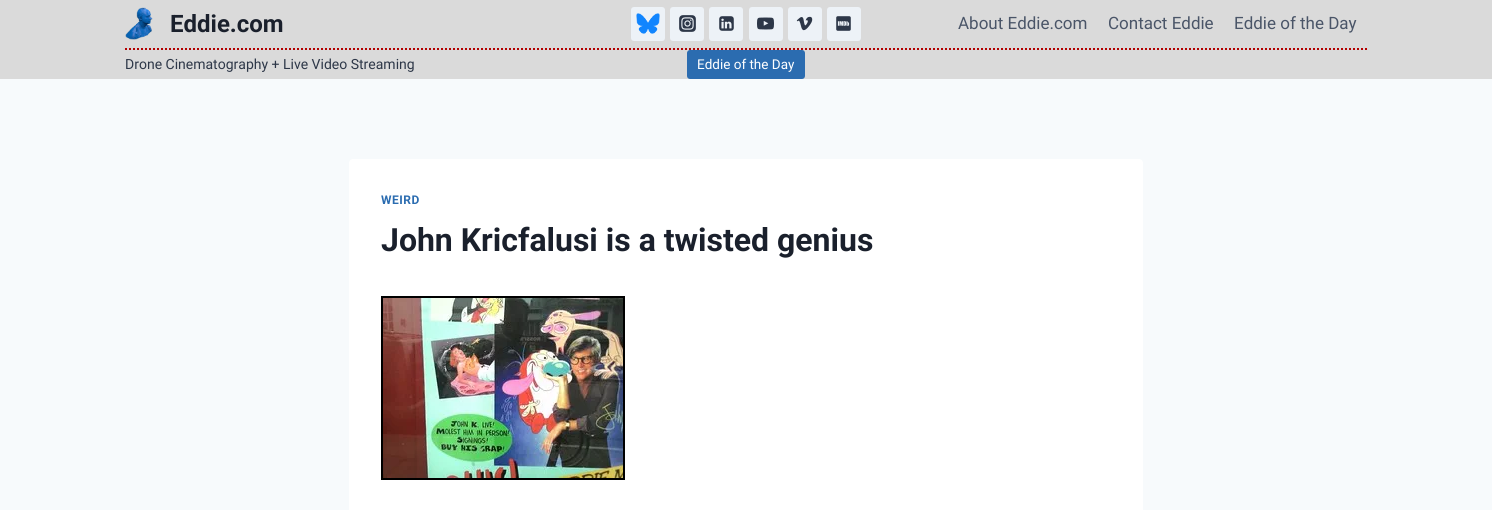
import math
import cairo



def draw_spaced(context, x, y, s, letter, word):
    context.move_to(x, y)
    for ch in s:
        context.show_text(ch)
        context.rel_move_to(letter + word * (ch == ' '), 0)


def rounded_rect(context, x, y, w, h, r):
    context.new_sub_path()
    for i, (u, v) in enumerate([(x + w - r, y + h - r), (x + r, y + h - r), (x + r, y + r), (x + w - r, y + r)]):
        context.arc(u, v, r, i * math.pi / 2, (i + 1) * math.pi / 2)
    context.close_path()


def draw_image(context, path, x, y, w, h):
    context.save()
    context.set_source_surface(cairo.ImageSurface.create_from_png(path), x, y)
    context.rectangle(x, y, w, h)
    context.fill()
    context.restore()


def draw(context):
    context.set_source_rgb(247 / 255, 250 / 255, 252 / 255)
    context.paint()
    context.set_source_rgb(218 / 255, 218 / 255, 218 / 255)
    context.rectangle(0, 0, 1492, 79)
    context.fill()
    context.new_path()
    context.move_to(125, 49)
    context.line_to(1367, 49)
    context.set_source_rgb(179 / 255, 0, 0)
    context.set_dash([2, 2])
    context.stroke()
    draw_image(context, "images/1.png", 125, 7, 28, 33)
    context.set_source_rgb(237 / 255, 242 / 255, 247 / 255)
    rounded_rect(context, 631, 7, 34, 34, 3)
    context.fill()
    draw_image(context, "images/2.png", 636, 13, 24, 21)
    rounded_rect(context, 670, 7, 34, 34, 3)
    context.fill()
    draw_image(context, "images/3.png", 679, 15, 17, 17)
    rounded_rect(context, 709, 7, 34, 34, 3)
    context.fill()
    draw_image(context, "images/4.png", 719, 16, 15, 15)
    rounded_rect(context, 749, 7, 34, 34, 3)
    context.fill()
    draw_image(context, "images/5.png", 757, 17, 17, 13)
    rounded_rect(context, 788, 7, 34, 34, 3)
    context.fill()
    draw_image(context, "images/6.png", 796, 16, 17, 15)
    rounded_rect(context, 827, 7, 34, 34, 3)
    context.fill()
    draw_image(context, "images/7.png", 836, 16, 15, 15)
    context.set_source_rgb(43 / 255, 108 / 255, 176 / 255)
    rounded_rect(context, 687, 50, 118, 29, 3)
    context.fill()
    context.set_source_rgb(1, 1, 1)
    rounded_rect(context, 349, 159, 794, 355, 4)
    context.fill()
    context.rectangle(382, 297, 242, 182)
    context.set_source_rgb(0, 0, 0)
    context.set_dash([])
    context.stroke()
    draw_image(context, "images/8.png", 383, 298, 240, 180)
    context.select_font_face("Roboto", cairo.FontSlant.NORMAL, cairo.FontWeight.BOLD)
    context.set_font_size(24)
    context.set_source_rgb(26 / 255, 32 / 255, 44 / 255)
    context.move_to(170, 32)
    context.show_text("Eddie.com")
    context.select_font_face("Roboto")
    context.set_font_size(17)
    context.set_source_rgb(74 / 255, 85 / 255, 104 / 255)
    context.move_to(958, 29)
    context.show_text("About Eddie.com")
    context.move_to(1108, 29)
    context.show_text("Contact Eddie")
    context.move_to(1234, 29)
    context.show_text("Eddie of the Day")
    context.set_font_size(14)
    context.set_source_rgb(45 / 255, 55 / 255, 72 / 255)
    context.move_to(125, 69)
    context.show_text("Drone Cinematography + Live Video Streaming")
    context.set_font_size(13.5)
    context.set_source_rgb(1, 1, 1)
    context.move_to(697, 69)
    context.show_text("Eddie of the Day")
    context.select_font_face("Roboto", cairo.FontSlant.NORMAL, cairo.FontWeight.BOLD)
    context.set_font_size(12)
    context.set_source_rgb(43 / 255, 108 / 255, 176 / 255)
    draw_spaced(context, 381, 204, "WEIRD", 0.5, 0)
    context.set_font_size(32)
    context.set_source_rgb(26 / 255, 32 / 255, 44 / 255)
    context.move_to(381, 251)
    context.show_text("John Kricfalusi is a twisted genius")


surface = cairo.ImageSurface(cairo.Format.RGB24, 1492, 510)
context = cairo.Context(surface)
options = cairo.FontOptions()
options.set_hint_metrics(cairo.HintMetrics.OFF)
options.set_hint_style(cairo.HintStyle.NONE)
context.set_font_options(options)
context.set_miter_limit(4)
draw(context)
surface.write_to_png("out.png")
